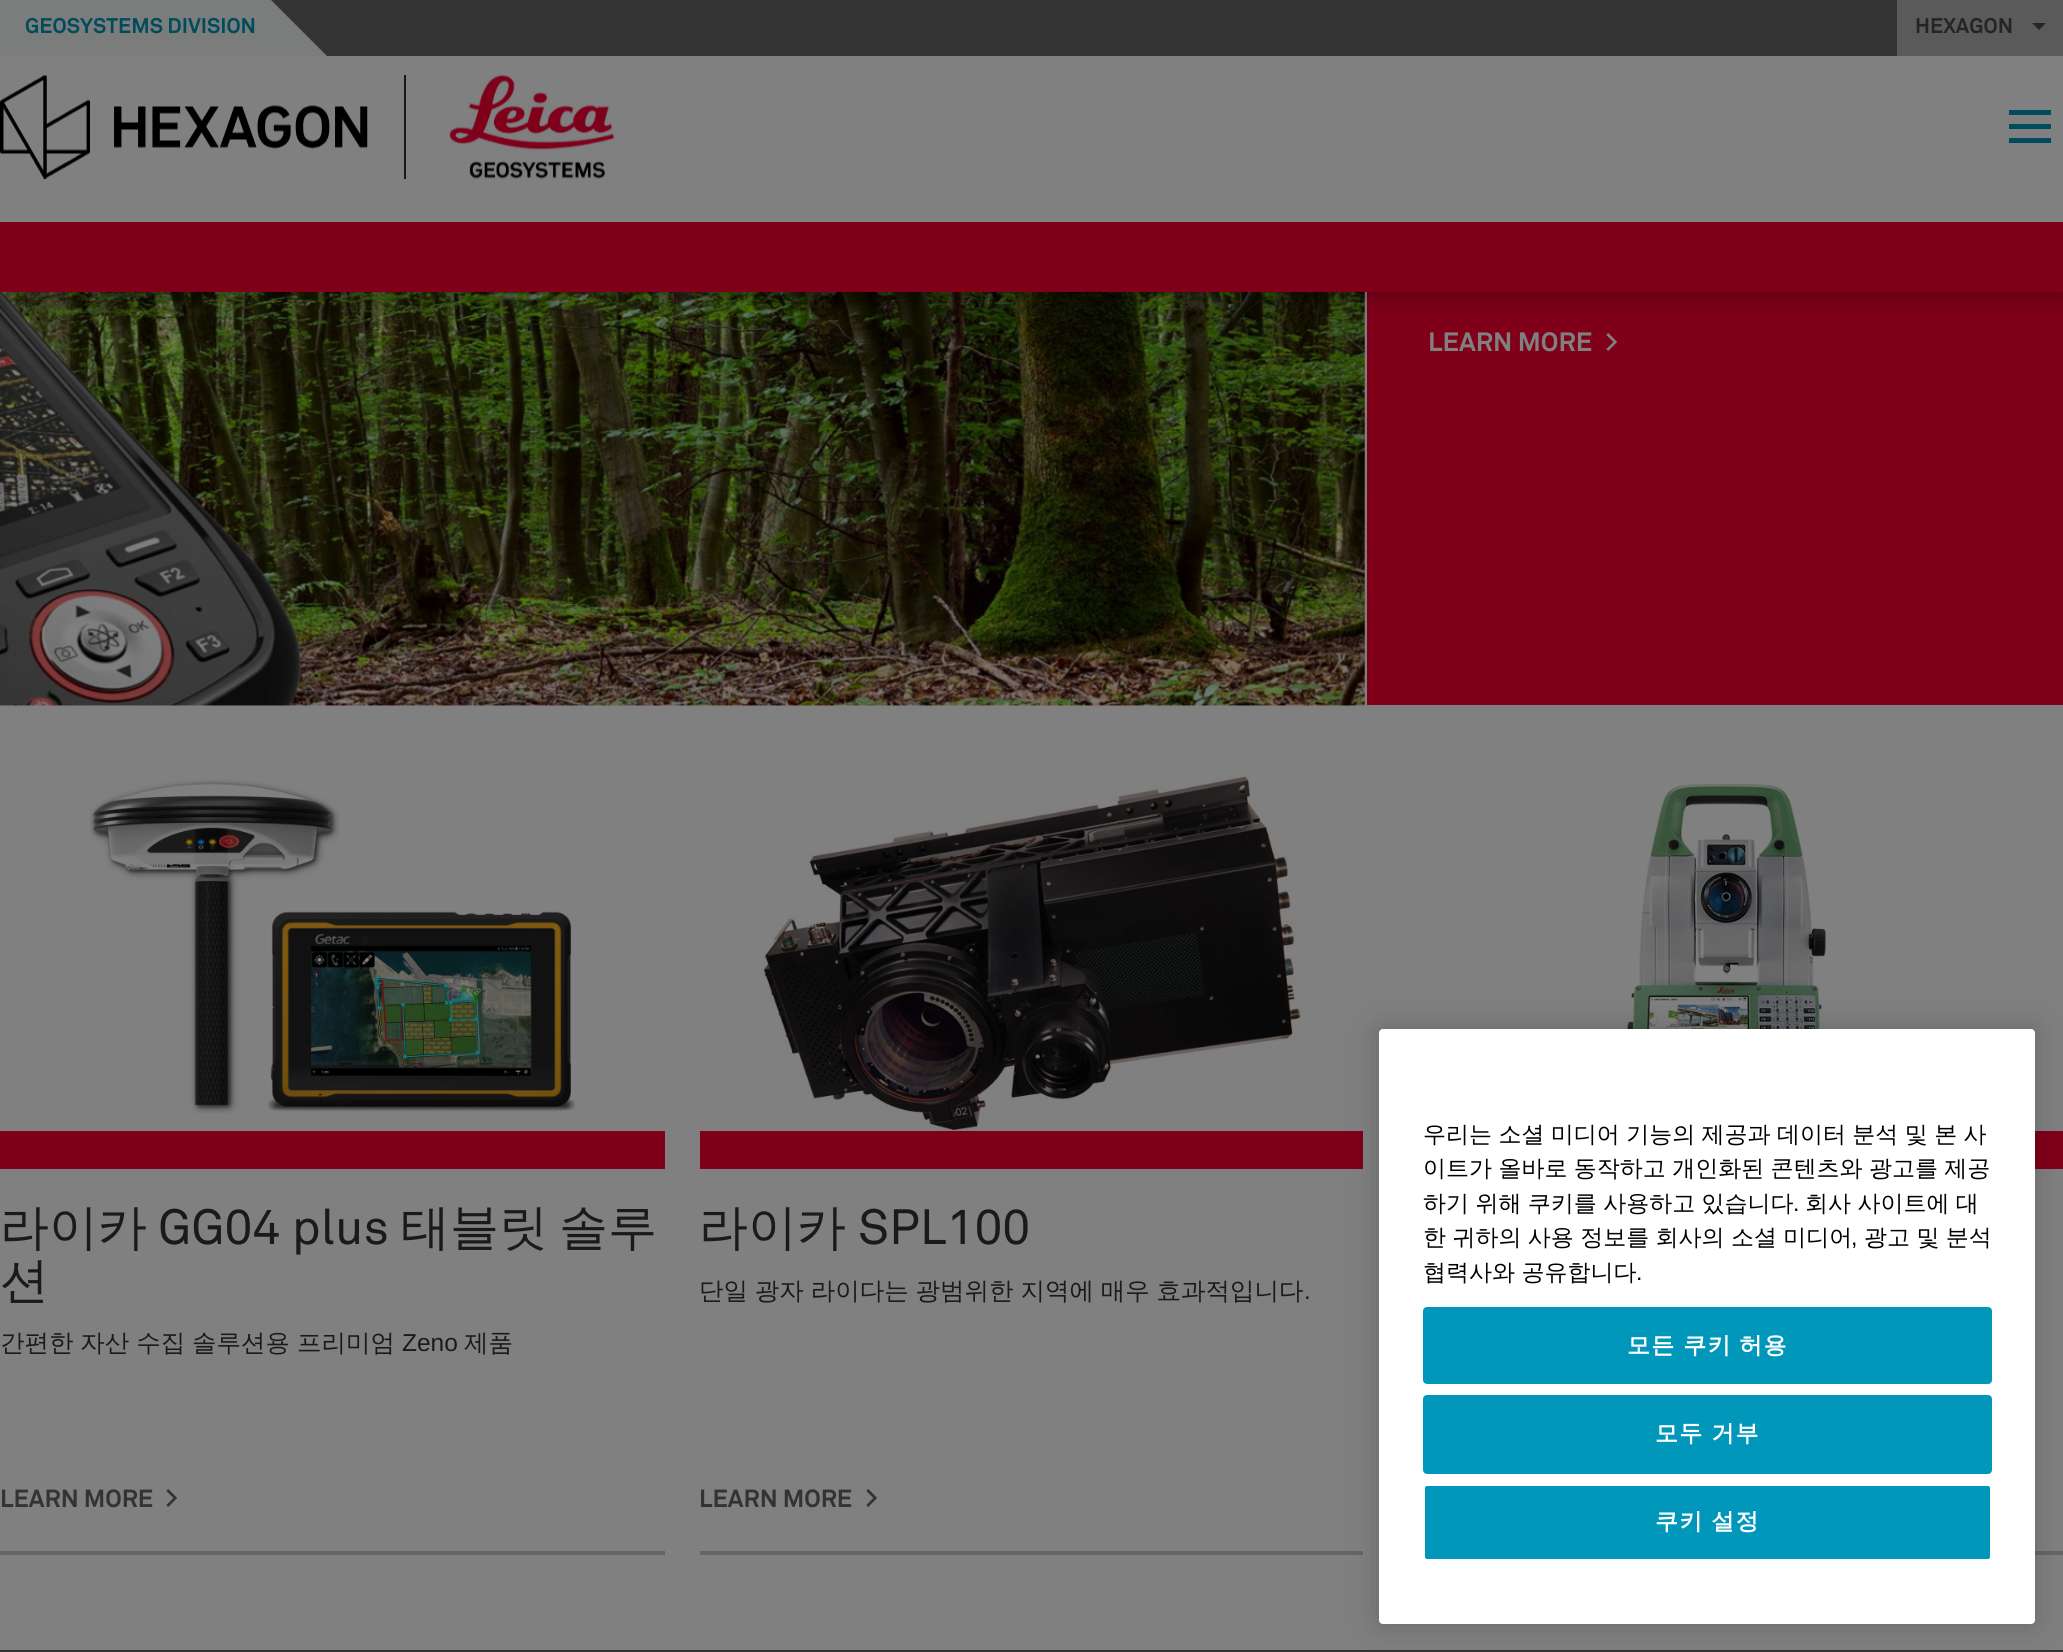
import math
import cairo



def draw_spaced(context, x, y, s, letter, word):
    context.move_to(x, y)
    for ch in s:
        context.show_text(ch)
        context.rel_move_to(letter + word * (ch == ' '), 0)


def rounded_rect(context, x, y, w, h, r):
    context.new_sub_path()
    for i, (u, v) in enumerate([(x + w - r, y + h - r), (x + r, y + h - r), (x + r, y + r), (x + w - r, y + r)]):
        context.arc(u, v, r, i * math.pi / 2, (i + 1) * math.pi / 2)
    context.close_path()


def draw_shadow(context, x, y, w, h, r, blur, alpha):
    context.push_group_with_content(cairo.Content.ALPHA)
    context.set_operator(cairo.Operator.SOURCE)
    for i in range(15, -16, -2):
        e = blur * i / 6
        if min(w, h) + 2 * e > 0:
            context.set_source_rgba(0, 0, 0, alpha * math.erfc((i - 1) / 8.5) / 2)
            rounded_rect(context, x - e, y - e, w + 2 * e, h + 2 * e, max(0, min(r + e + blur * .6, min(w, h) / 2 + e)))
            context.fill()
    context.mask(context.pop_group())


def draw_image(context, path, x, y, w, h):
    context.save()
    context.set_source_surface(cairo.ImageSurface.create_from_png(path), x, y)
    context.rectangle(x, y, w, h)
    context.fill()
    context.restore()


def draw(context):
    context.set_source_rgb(128 / 255, 128 / 255, 128 / 255)
    context.paint()
    draw_image(context, "images/3.png", 0, 292, 1365, 414)
    context.set_source_rgb(128 / 255, 0, 26 / 255)
    context.rectangle(1367, 292, 696, 413)
    context.fill()
    context.set_source_rgb(0, 0, 0)
    draw_shadow(context, 0, 4, 2063, 292, 0, 13, 0.3)
    context.set_source_rgb(128 / 255, 128 / 255, 128 / 255)
    context.rectangle(0, 56, 2063, 166)
    context.fill()
    context.set_source_rgb(51 / 255, 51 / 255, 51 / 255)
    context.rectangle(271, 0, 1626, 56)
    context.fill()
    context.set_source_rgb(123 / 255, 124 / 255, 124 / 255)
    context.rectangle(0, 0, 271, 56)
    context.fill()
    context.new_path()
    context.move_to(327, 56)
    context.line_to(271, 56)
    context.line_to(271, 0)
    context.close_path()
    context.fill()
    context.set_source_rgb(90 / 255, 90 / 255, 90 / 255)
    context.rectangle(1897, 0, 166, 56)
    context.fill()
    context.set_source_rgb(37 / 255, 37 / 255, 37 / 255)
    context.new_path()
    context.move_to(2032, 23)
    context.line_to(2046, 23)
    context.line_to(2039, 30)
    context.close_path()
    context.fill()
    context.set_source_rgb(26 / 255, 26 / 255, 26 / 255)
    context.rectangle(404, 75, 2, 104)
    context.fill()
    draw_image(context, "images/1.png", 0, 75, 368, 104)
    draw_image(context, "images/2.png", 449, 74, 166, 105)
    context.set_source_rgb(0, 76 / 255, 93 / 255)
    context.rectangle(2009, 110, 42, 5)
    context.fill()
    context.rectangle(2009, 124, 42, 5)
    context.fill()
    context.rectangle(2009, 138, 42, 5)
    context.fill()
    context.set_source_rgb(128 / 255, 0, 26 / 255)
    context.rectangle(0, 222, 2063, 70)
    context.fill()
    context.set_source_rgb(102 / 255, 102 / 255, 102 / 255)
    context.rectangle(0, 1551, 665, 4)
    context.fill()
    draw_image(context, "images/4.png", 90, 779, 486, 335)
    context.set_source_rgb(128 / 255, 0, 26 / 255)
    context.rectangle(0, 1131, 665, 38)
    context.fill()
    context.set_source_rgb(102 / 255, 102 / 255, 102 / 255)
    context.rectangle(700, 1551, 663, 4)
    context.fill()
    draw_image(context, "images/5.png", 763, 776, 539, 355)
    context.set_source_rgb(128 / 255, 0, 26 / 255)
    context.rectangle(700, 1131, 663, 38)
    context.fill()
    context.set_source_rgb(102 / 255, 102 / 255, 102 / 255)
    context.rectangle(2035, 1551, 28, 4)
    context.fill()
    draw_image(context, "images/6.png", 1626, 783, 200, 246)
    context.set_source_rgb(128 / 255, 0, 26 / 255)
    context.rectangle(2035, 1131, 28, 38)
    context.fill()
    context.set_source_rgb(51 / 255, 51 / 255, 51 / 255)
    context.rectangle(0, 1650, 2063, 2)
    context.fill()
    context.set_source_rgb(0, 0, 0)
    draw_shadow(context, 1379, 1029, 656, 595, 4, 16, 0.2)
    context.set_source_rgb(1, 1, 1)
    rounded_rect(context, 1379, 1029, 656, 595, 4)
    context.fill()
    context.set_source_rgb(0, 151 / 255, 186 / 255)
    rounded_rect(context, 1424, 1308, 567, 75, 3)
    context.fill_preserve()
    context.stroke()
    rounded_rect(context, 1424, 1396, 567, 77, 3)
    context.fill_preserve()
    context.stroke()
    rounded_rect(context, 1424, 1485, 567, 75, 3)
    context.fill_preserve()
    context.set_source_rgb(1, 1, 1)
    context.stroke()
    context.select_font_face("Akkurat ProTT", cairo.FontSlant.NORMAL, cairo.FontWeight.BOLD)
    context.set_font_size(21)
    context.set_source_rgb(0, 76 / 255, 93 / 255)
    context.move_to(25, 33)
    context.show_text("GEOSYSTEMS DIVISION")
    context.set_source_rgb(37 / 255, 37 / 255, 37 / 255)
    context.move_to(1915, 33)
    context.show_text("HEXAGON")
    context.set_font_size(26.25)
    context.set_source_rgb(128 / 255, 128 / 255, 128 / 255)
    context.move_to(1428, 351)
    context.show_text("LEARN MORE")
    context.set_font_size(28)
    context.move_to(1605, 351)
    context.show_text(">")
    context.select_font_face("WenQuanYi Zen Hei Medium")
    context.set_font_size(49)
    context.set_source_rgb(26 / 255, 26 / 255, 26 / 255)
    context.move_to(0, 1244)
    context.show_text("라이카")
    context.select_font_face("Akkurat ProTT")
    context.move_to(158, 1244)
    context.show_text("GG04 plus")
    context.select_font_face("WenQuanYi Zen Hei Medium")
    context.move_to(401, 1244)
    context.show_text("태블릿")
    context.move_to(559, 1244)
    context.show_text("솔루")
    context.move_to(0, 1297)
    context.show_text("션")
    context.set_font_size(24.5)
    draw_spaced(context, 0, 1351, "간편한 자산 수집 솔루션용 프리미엄", 0, -0.5)
    context.select_font_face("Liberation Sans")
    context.move_to(402, 1351)
    context.show_text("Zeno")
    context.select_font_face("WenQuanYi Zen Hei Medium")
    context.move_to(464, 1351)
    context.show_text("제품")
    context.select_font_face("Akkurat ProTT", cairo.FontSlant.NORMAL, cairo.FontWeight.BOLD)
    context.set_source_rgb(51 / 255, 51 / 255, 51 / 255)
    context.move_to(0, 1507)
    context.show_text("LEARN MORE")
    context.set_font_size(28)
    context.move_to(165, 1507)
    context.show_text(">")
    context.select_font_face("WenQuanYi Zen Hei Medium")
    context.set_font_size(49)
    context.set_source_rgb(26 / 255, 26 / 255, 26 / 255)
    context.move_to(699, 1244)
    context.show_text("라이카")
    context.select_font_face("Akkurat ProTT")
    context.move_to(858, 1244)
    context.show_text("SPL100")
    context.select_font_face("WenQuanYi Zen Hei Medium")
    context.set_font_size(24.5)
    draw_spaced(context, 699, 1299, "단일 광자 라이다는 광범위한 지역에 매우 효과적입니다", 0, -0.5)
    context.select_font_face("Liberation Sans")
    context.move_to(1304, 1299)
    context.show_text(".")
    context.select_font_face("Akkurat ProTT", cairo.FontSlant.NORMAL, cairo.FontWeight.BOLD)
    context.set_source_rgb(51 / 255, 51 / 255, 51 / 255)
    context.move_to(699, 1507)
    context.show_text("LEARN MORE")
    context.set_font_size(28)
    context.move_to(865, 1507)
    context.show_text(">")
    context.select_font_face("WenQuanYi Zen Hei Medium")
    context.set_font_size(23)
    context.set_source_rgb(0, 0, 0)
    draw_spaced(context, 1423, 1142, "우리는 소셜 미디어 기능의 제공과 데이터 분석 및 본 사", 0, -0.5)
    draw_spaced(context, 1423, 1176, "이트가 올바로 동작하고 개인화된 콘텐츠와 광고를 제공", 0, -0.5)
    draw_spaced(context, 1423, 1211, "하기 위해 쿠키를 사용하고 있습니다", 0, -0.5)
    context.select_font_face("Liberation Sans")
    context.move_to(1793, 1211)
    context.show_text(".")
    context.select_font_face("WenQuanYi Zen Hei Medium")
    draw_spaced(context, 1805, 1211, "회사 사이트에 대", 0, -0.5)
    draw_spaced(context, 1423, 1245, "한 귀하의 사용 정보를 회사의 소셜 미디어", 0, -0.5)
    context.select_font_face("Liberation Sans")
    context.move_to(1851, 1245)
    context.show_text(",")
    context.select_font_face("WenQuanYi Zen Hei Medium")
    draw_spaced(context, 1864, 1245, "광고 및 분석", 0, -0.5)
    draw_spaced(context, 1423, 1280, "협력사와 공유합니다", 0, -0.5)
    context.select_font_face("Liberation Sans")
    context.move_to(1636, 1280)
    context.show_text(".")
    context.select_font_face("WenQuanYi Zen Hei", cairo.FontSlant.NORMAL, cairo.FontWeight.BOLD)
    context.set_source_rgb(1, 1, 1)
    draw_spaced(context, 1627, 1353, "모든 쿠키 허용", 1.25, -0.5)
    draw_spaced(context, 1655, 1441, "모두 거부", 1.25, -0.5)
    draw_spaced(context, 1655, 1529, "쿠키 설정", 1.25, -0.5)


surface = cairo.ImageSurface(cairo.Format.RGB24, 2063, 1652)
context = cairo.Context(surface)
options = cairo.FontOptions()
options.set_hint_metrics(cairo.HintMetrics.OFF)
options.set_hint_style(cairo.HintStyle.NONE)
context.set_font_options(options)
context.set_miter_limit(4)
draw(context)
surface.write_to_png("out.png")
